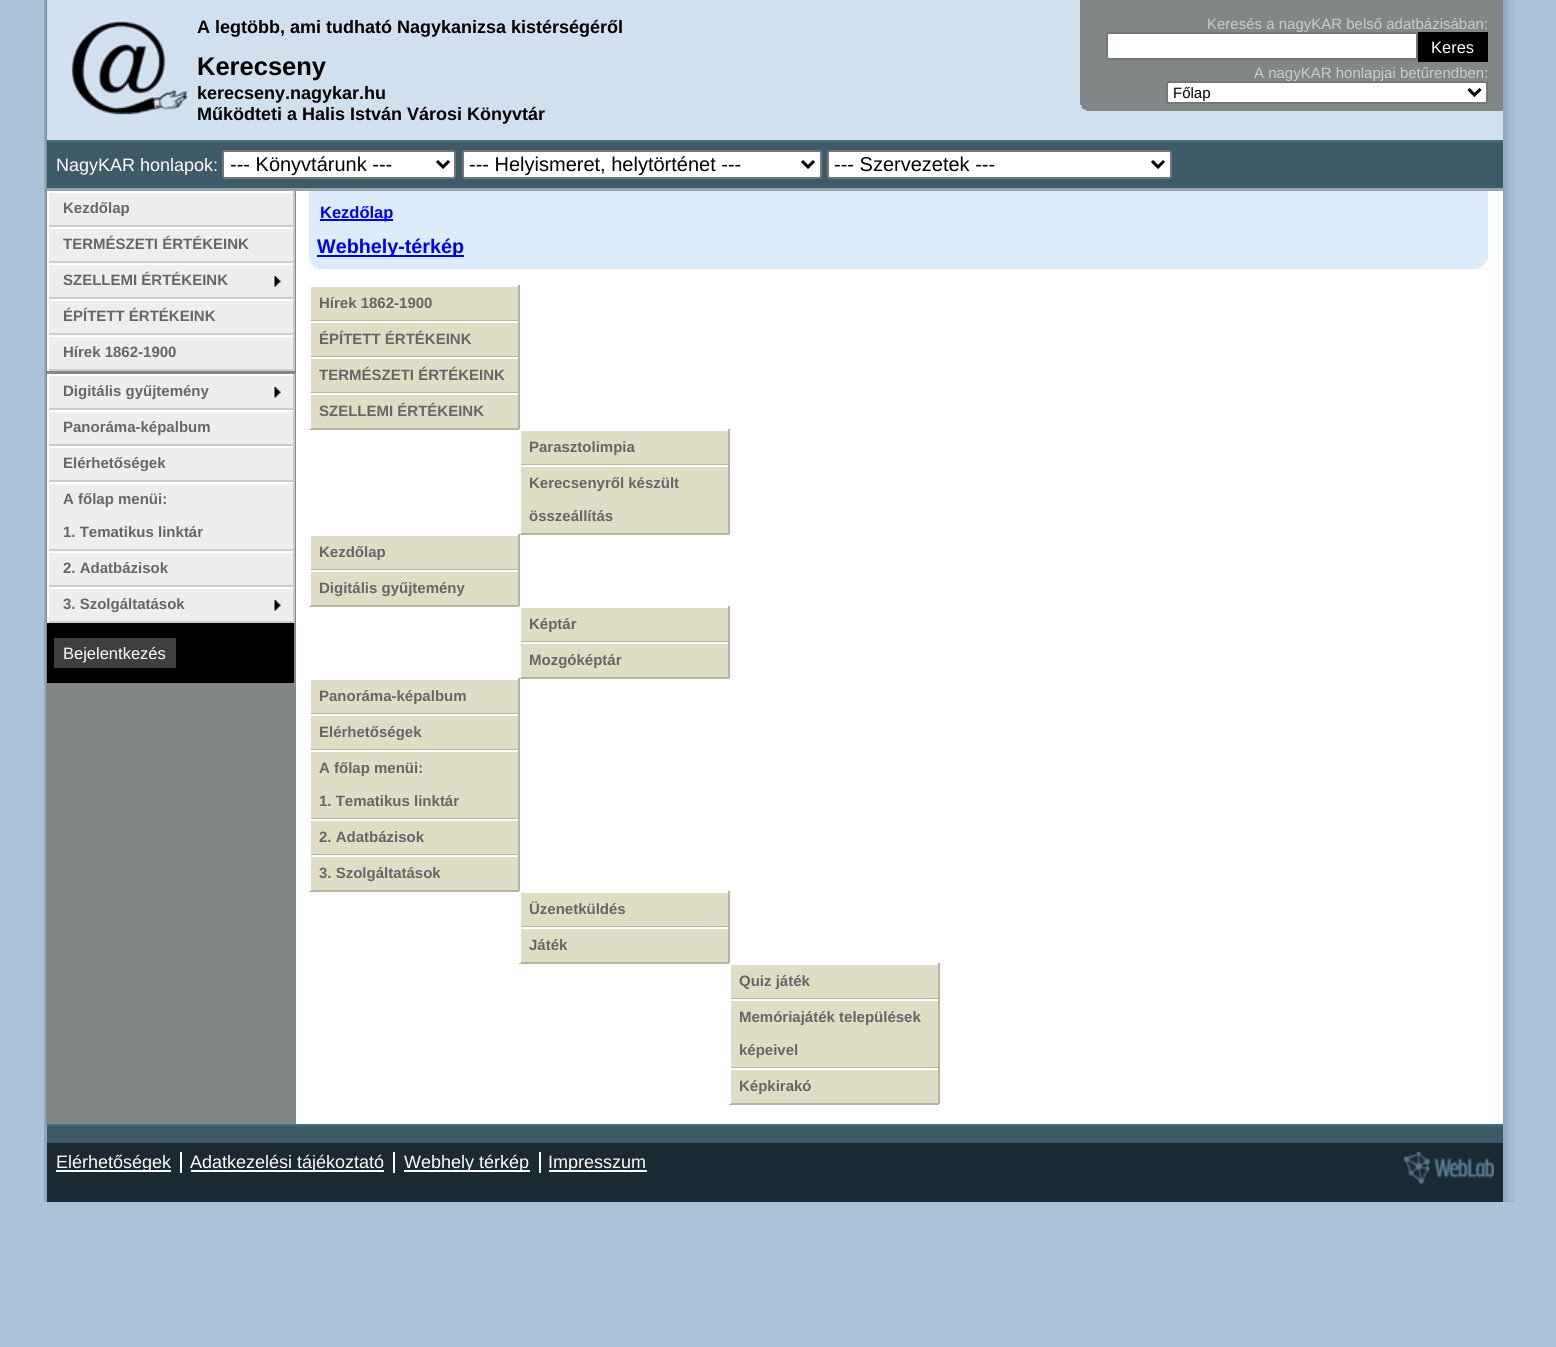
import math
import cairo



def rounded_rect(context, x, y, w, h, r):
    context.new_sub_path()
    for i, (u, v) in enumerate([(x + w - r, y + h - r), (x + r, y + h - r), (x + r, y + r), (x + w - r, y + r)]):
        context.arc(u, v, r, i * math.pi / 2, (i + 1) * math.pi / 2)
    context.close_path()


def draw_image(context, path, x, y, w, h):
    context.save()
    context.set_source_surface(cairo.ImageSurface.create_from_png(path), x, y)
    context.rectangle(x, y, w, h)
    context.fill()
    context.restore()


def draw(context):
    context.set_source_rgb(172 / 255, 194 / 255, 217 / 255)
    context.paint()
    context.set_source_rgb(143 / 255, 167 / 255, 191 / 255)
    context.rectangle(44, 0, 1470, 1202)
    context.fill()
    draw_image(context, "images/1.png", 1504, 0, 10, 1202)
    context.set_source_rgb(1, 1, 1)
    context.rectangle(296, 191, 1207, 933)
    context.fill()
    context.set_source_rgb(129 / 255, 135 / 255, 135 / 255)
    context.rectangle(46, 0, 250, 1124)
    context.fill()
    context.set_source_rgb(209 / 255, 224 / 255, 239 / 255)
    context.rectangle(47, 0, 1456, 140)
    context.fill()
    context.set_source_rgb(153 / 255, 164 / 255, 175 / 255)
    context.rectangle(47, 188, 1456, 3)
    context.fill()
    draw_image(context, "images/2.png", 62, 15, 134, 105)
    context.set_source_rgb(129 / 255, 135 / 255, 135 / 255)
    context.rectangle(1080, 0, 423, 111)
    context.fill()
    draw_image(context, "images/3.png", 1080, 105, 6, 6)
    context.set_source_rgb(63 / 255, 91 / 255, 104 / 255)
    context.rectangle(47, 142, 1456, 46)
    context.fill()
    context.set_source_rgb(71 / 255, 110 / 255, 127 / 255)
    context.rectangle(47, 140, 1456, 2)
    context.fill()
    context.set_source_rgb(1, 1, 1)
    rounded_rect(context, 223, 151, 232, 27, 2)
    context.fill_preserve()
    context.set_source_rgb(118 / 255, 118 / 255, 118 / 255)
    context.stroke()
    context.new_path()
    context.move_to(437, 161)
    context.line_to(443, 167)
    context.line_to(449, 161)
    context.set_source_rgb(0, 0, 0)
    context.set_line_width(3)
    context.stroke()
    context.set_source_rgb(1, 1, 1)
    rounded_rect(context, 463, 151, 358, 27, 2)
    context.fill_preserve()
    context.set_source_rgb(118 / 255, 118 / 255, 118 / 255)
    context.set_line_width(2)
    context.stroke()
    context.new_path()
    context.move_to(802, 161)
    context.line_to(808, 167)
    context.line_to(814, 161)
    context.set_source_rgb(0, 0, 0)
    context.set_line_width(3)
    context.stroke()
    context.set_source_rgb(1, 1, 1)
    rounded_rect(context, 828, 151, 343, 27, 2)
    context.fill_preserve()
    context.set_source_rgb(118 / 255, 118 / 255, 118 / 255)
    context.set_line_width(2)
    context.stroke()
    context.new_path()
    context.move_to(1152, 161)
    context.line_to(1158, 167)
    context.line_to(1164, 161)
    context.set_source_rgb(0, 0, 0)
    context.set_line_width(3)
    context.stroke()
    context.set_source_rgb(238 / 255, 238 / 255, 238 / 255)
    context.rectangle(49, 193, 244, 32)
    context.fill()
    context.set_source_rgb(1, 1, 1)
    context.rectangle(47, 191, 247, 2)
    context.fill()
    context.set_source_rgb(204 / 255, 204 / 255, 204 / 255)
    context.rectangle(293, 191, 2, 36)
    context.fill()
    context.rectangle(47, 225, 247, 2)
    context.fill()
    context.set_source_rgb(1, 1, 1)
    context.rectangle(47, 191, 2, 36)
    context.fill()
    context.set_source_rgb(238 / 255, 238 / 255, 238 / 255)
    context.rectangle(49, 229, 244, 32)
    context.fill()
    context.set_source_rgb(1, 1, 1)
    context.rectangle(47, 227, 247, 2)
    context.fill()
    context.set_source_rgb(204 / 255, 204 / 255, 204 / 255)
    context.rectangle(293, 227, 2, 36)
    context.fill()
    context.rectangle(47, 261, 247, 2)
    context.fill()
    context.set_source_rgb(1, 1, 1)
    context.rectangle(47, 227, 2, 36)
    context.fill()
    context.set_source_rgb(238 / 255, 238 / 255, 238 / 255)
    context.rectangle(49, 265, 244, 32)
    context.fill()
    draw_image(context, "images/4.png", 274, 276, 7, 11)
    context.set_source_rgb(1, 1, 1)
    context.rectangle(47, 263, 247, 2)
    context.fill()
    context.set_source_rgb(204 / 255, 204 / 255, 204 / 255)
    context.rectangle(293, 263, 2, 36)
    context.fill()
    context.rectangle(47, 297, 247, 2)
    context.fill()
    context.set_source_rgb(1, 1, 1)
    context.rectangle(47, 263, 2, 36)
    context.fill()
    context.set_source_rgb(238 / 255, 238 / 255, 238 / 255)
    context.rectangle(49, 301, 244, 32)
    context.fill()
    context.set_source_rgb(1, 1, 1)
    context.rectangle(47, 299, 247, 2)
    context.fill()
    context.set_source_rgb(204 / 255, 204 / 255, 204 / 255)
    context.rectangle(293, 299, 2, 36)
    context.fill()
    context.rectangle(47, 333, 247, 2)
    context.fill()
    context.set_source_rgb(1, 1, 1)
    context.rectangle(47, 299, 2, 36)
    context.fill()
    context.set_source_rgb(238 / 255, 238 / 255, 238 / 255)
    context.rectangle(49, 337, 244, 32)
    context.fill()
    context.set_source_rgb(1, 1, 1)
    context.rectangle(47, 335, 247, 2)
    context.fill()
    context.set_source_rgb(204 / 255, 204 / 255, 204 / 255)
    context.rectangle(293, 335, 2, 36)
    context.fill()
    context.rectangle(47, 369, 247, 2)
    context.fill()
    context.set_source_rgb(1, 1, 1)
    context.rectangle(47, 335, 2, 36)
    context.fill()
    context.set_source_rgb(238 / 255, 238 / 255, 238 / 255)
    context.rectangle(49, 376, 244, 32)
    context.fill()
    draw_image(context, "images/4.png", 274, 387, 7, 11)
    context.set_source_rgb(1, 1, 1)
    context.rectangle(47, 374, 247, 2)
    context.fill()
    context.set_source_rgb(204 / 255, 204 / 255, 204 / 255)
    context.rectangle(293, 374, 2, 36)
    context.fill()
    context.rectangle(47, 408, 247, 2)
    context.fill()
    context.set_source_rgb(1, 1, 1)
    context.rectangle(47, 374, 2, 36)
    context.fill()
    context.set_source_rgb(238 / 255, 238 / 255, 238 / 255)
    context.rectangle(49, 412, 244, 32)
    context.fill()
    context.set_source_rgb(1, 1, 1)
    context.rectangle(47, 410, 247, 2)
    context.fill()
    context.set_source_rgb(204 / 255, 204 / 255, 204 / 255)
    context.rectangle(293, 410, 2, 36)
    context.fill()
    context.rectangle(47, 444, 247, 2)
    context.fill()
    context.set_source_rgb(1, 1, 1)
    context.rectangle(47, 410, 2, 36)
    context.fill()
    context.set_source_rgb(238 / 255, 238 / 255, 238 / 255)
    context.rectangle(49, 448, 244, 32)
    context.fill()
    context.set_source_rgb(1, 1, 1)
    context.rectangle(47, 446, 247, 2)
    context.fill()
    context.set_source_rgb(204 / 255, 204 / 255, 204 / 255)
    context.rectangle(293, 446, 2, 36)
    context.fill()
    context.rectangle(47, 480, 247, 2)
    context.fill()
    context.set_source_rgb(1, 1, 1)
    context.rectangle(47, 446, 2, 36)
    context.fill()
    context.set_source_rgb(238 / 255, 238 / 255, 238 / 255)
    context.rectangle(49, 484, 244, 65)
    context.fill()
    context.set_source_rgb(1, 1, 1)
    context.rectangle(47, 482, 247, 2)
    context.fill()
    context.set_source_rgb(204 / 255, 204 / 255, 204 / 255)
    context.rectangle(293, 482, 2, 69)
    context.fill()
    context.rectangle(47, 549, 247, 2)
    context.fill()
    context.set_source_rgb(1, 1, 1)
    context.rectangle(47, 482, 2, 69)
    context.fill()
    context.set_source_rgb(238 / 255, 238 / 255, 238 / 255)
    context.rectangle(49, 553, 244, 32)
    context.fill()
    context.set_source_rgb(1, 1, 1)
    context.rectangle(47, 551, 247, 2)
    context.fill()
    context.set_source_rgb(204 / 255, 204 / 255, 204 / 255)
    context.rectangle(293, 551, 2, 36)
    context.fill()
    context.rectangle(47, 585, 247, 2)
    context.fill()
    context.set_source_rgb(1, 1, 1)
    context.rectangle(47, 551, 2, 36)
    context.fill()
    context.set_source_rgb(238 / 255, 238 / 255, 238 / 255)
    context.rectangle(49, 589, 244, 32)
    context.fill()
    draw_image(context, "images/4.png", 274, 600, 7, 11)
    context.set_source_rgb(1, 1, 1)
    context.rectangle(47, 587, 247, 2)
    context.fill()
    context.set_source_rgb(204 / 255, 204 / 255, 204 / 255)
    context.rectangle(293, 587, 2, 36)
    context.fill()
    context.rectangle(47, 621, 247, 2)
    context.fill()
    context.set_source_rgb(1, 1, 1)
    context.rectangle(47, 587, 2, 36)
    context.fill()
    context.set_source_rgb(0, 0, 0)
    context.rectangle(47, 623, 247, 60)
    context.fill()
    context.set_source_rgb(63 / 255, 63 / 255, 63 / 255)
    context.rectangle(54, 638, 122, 30)
    context.fill()
    context.set_source_rgb(220 / 255, 236 / 255, 251 / 255)
    context.rectangle(309, 191, 1179, 78)
    context.fill()
    draw_image(context, "images/5.png", 309, 261, 9, 8)
    draw_image(context, "images/6.png", 1479, 259, 9, 10)
    context.set_source_rgb(0, 0, 238 / 255)
    context.rectangle(320, 219, 73, 2)
    context.fill()
    context.rectangle(317, 255, 147, 2)
    context.fill()
    context.set_source_rgb(223 / 255, 221 / 255, 198 / 255)
    context.rectangle(311, 287, 207, 33)
    context.fill()
    context.set_source_rgb(183 / 255, 181 / 255, 162 / 255)
    context.rectangle(518, 285, 2, 144)
    context.fill()
    context.rectangle(309, 320, 210, 1)
    context.fill()
    context.set_source_rgb(1, 1, 1)
    context.rectangle(309, 320, 2, 1)
    context.fill()
    context.set_source_rgb(223 / 255, 221 / 255, 198 / 255)
    context.rectangle(311, 323, 207, 33)
    context.fill()
    context.set_source_rgb(183 / 255, 181 / 255, 162 / 255)
    context.rectangle(309, 356, 210, 1)
    context.fill()
    context.set_source_rgb(1, 1, 1)
    context.rectangle(309, 356, 2, 1)
    context.fill()
    context.set_source_rgb(223 / 255, 221 / 255, 198 / 255)
    context.rectangle(311, 359, 207, 33)
    context.fill()
    context.set_source_rgb(183 / 255, 181 / 255, 162 / 255)
    context.rectangle(309, 392, 210, 1)
    context.fill()
    context.set_source_rgb(1, 1, 1)
    context.rectangle(309, 392, 2, 1)
    context.fill()
    context.set_source_rgb(223 / 255, 221 / 255, 198 / 255)
    context.rectangle(311, 395, 207, 33)
    context.fill()
    context.set_source_rgb(183 / 255, 181 / 255, 162 / 255)
    context.rectangle(309, 428, 210, 2)
    context.fill()
    context.set_source_rgb(1, 1, 1)
    context.rectangle(309, 428, 2, 1)
    context.fill()
    context.set_source_rgb(223 / 255, 221 / 255, 198 / 255)
    context.rectangle(521, 431, 207, 33)
    context.fill()
    context.set_source_rgb(183 / 255, 181 / 255, 162 / 255)
    context.rectangle(728, 429, 2, 105)
    context.fill()
    context.rectangle(519, 464, 210, 1)
    context.fill()
    context.set_source_rgb(1, 1, 1)
    context.rectangle(519, 464, 2, 1)
    context.fill()
    context.set_source_rgb(223 / 255, 221 / 255, 198 / 255)
    context.rectangle(521, 467, 207, 66)
    context.fill()
    context.set_source_rgb(183 / 255, 181 / 255, 162 / 255)
    context.rectangle(518, 534, 2, 72)
    context.fill()
    context.rectangle(519, 533, 210, 2)
    context.fill()
    context.set_source_rgb(1, 1, 1)
    context.rectangle(519, 533, 2, 1)
    context.fill()
    context.set_source_rgb(223 / 255, 221 / 255, 198 / 255)
    context.rectangle(311, 536, 207, 33)
    context.fill()
    context.set_source_rgb(183 / 255, 181 / 255, 162 / 255)
    context.rectangle(309, 569, 210, 1)
    context.fill()
    context.set_source_rgb(1, 1, 1)
    context.rectangle(309, 569, 2, 1)
    context.fill()
    context.set_source_rgb(223 / 255, 221 / 255, 198 / 255)
    context.rectangle(311, 572, 207, 33)
    context.fill()
    context.set_source_rgb(183 / 255, 181 / 255, 162 / 255)
    context.rectangle(309, 605, 210, 2)
    context.fill()
    context.set_source_rgb(1, 1, 1)
    context.rectangle(309, 605, 2, 1)
    context.fill()
    context.set_source_rgb(223 / 255, 221 / 255, 198 / 255)
    context.rectangle(521, 608, 207, 33)
    context.fill()
    context.set_source_rgb(183 / 255, 181 / 255, 162 / 255)
    context.rectangle(728, 606, 2, 72)
    context.fill()
    context.rectangle(519, 641, 210, 1)
    context.fill()
    context.set_source_rgb(1, 1, 1)
    context.rectangle(519, 641, 2, 1)
    context.fill()
    context.set_source_rgb(223 / 255, 221 / 255, 198 / 255)
    context.rectangle(521, 644, 207, 33)
    context.fill()
    context.set_source_rgb(183 / 255, 181 / 255, 162 / 255)
    context.rectangle(518, 678, 2, 213)
    context.fill()
    context.rectangle(519, 677, 210, 2)
    context.fill()
    context.set_source_rgb(1, 1, 1)
    context.rectangle(519, 677, 2, 1)
    context.fill()
    context.set_source_rgb(223 / 255, 221 / 255, 198 / 255)
    context.rectangle(311, 680, 207, 33)
    context.fill()
    context.set_source_rgb(183 / 255, 181 / 255, 162 / 255)
    context.rectangle(309, 713, 210, 1)
    context.fill()
    context.set_source_rgb(1, 1, 1)
    context.rectangle(309, 713, 2, 1)
    context.fill()
    context.set_source_rgb(223 / 255, 221 / 255, 198 / 255)
    context.rectangle(311, 716, 207, 33)
    context.fill()
    context.set_source_rgb(183 / 255, 181 / 255, 162 / 255)
    context.rectangle(309, 749, 210, 1)
    context.fill()
    context.set_source_rgb(1, 1, 1)
    context.rectangle(309, 749, 2, 1)
    context.fill()
    context.set_source_rgb(223 / 255, 221 / 255, 198 / 255)
    context.rectangle(311, 752, 207, 66)
    context.fill()
    context.set_source_rgb(183 / 255, 181 / 255, 162 / 255)
    context.rectangle(309, 818, 210, 1)
    context.fill()
    context.set_source_rgb(1, 1, 1)
    context.rectangle(309, 818, 2, 1)
    context.fill()
    context.set_source_rgb(223 / 255, 221 / 255, 198 / 255)
    context.rectangle(311, 821, 207, 33)
    context.fill()
    context.set_source_rgb(183 / 255, 181 / 255, 162 / 255)
    context.rectangle(309, 854, 210, 1)
    context.fill()
    context.set_source_rgb(1, 1, 1)
    context.rectangle(309, 854, 2, 1)
    context.fill()
    context.set_source_rgb(223 / 255, 221 / 255, 198 / 255)
    context.rectangle(311, 857, 207, 33)
    context.fill()
    context.set_source_rgb(183 / 255, 181 / 255, 162 / 255)
    context.rectangle(309, 890, 210, 2)
    context.fill()
    context.set_source_rgb(1, 1, 1)
    context.rectangle(309, 890, 2, 1)
    context.fill()
    context.set_source_rgb(223 / 255, 221 / 255, 198 / 255)
    context.rectangle(521, 893, 207, 33)
    context.fill()
    context.set_source_rgb(183 / 255, 181 / 255, 162 / 255)
    context.rectangle(728, 891, 2, 72)
    context.fill()
    context.rectangle(519, 926, 210, 1)
    context.fill()
    context.set_source_rgb(1, 1, 1)
    context.rectangle(519, 926, 2, 1)
    context.fill()
    context.set_source_rgb(223 / 255, 221 / 255, 198 / 255)
    context.rectangle(521, 929, 207, 33)
    context.fill()
    context.set_source_rgb(183 / 255, 181 / 255, 162 / 255)
    context.rectangle(519, 962, 210, 2)
    context.fill()
    context.set_source_rgb(1, 1, 1)
    context.rectangle(519, 962, 2, 1)
    context.fill()
    context.set_source_rgb(223 / 255, 221 / 255, 198 / 255)
    context.rectangle(731, 965, 207, 33)
    context.fill()
    context.set_source_rgb(183 / 255, 181 / 255, 162 / 255)
    context.rectangle(938, 963, 2, 141)
    context.fill()
    context.rectangle(729, 998, 210, 1)
    context.fill()
    context.set_source_rgb(1, 1, 1)
    context.rectangle(729, 998, 2, 1)
    context.fill()
    context.set_source_rgb(223 / 255, 221 / 255, 198 / 255)
    context.rectangle(731, 1001, 207, 66)
    context.fill()
    context.set_source_rgb(183 / 255, 181 / 255, 162 / 255)
    context.rectangle(729, 1067, 210, 1)
    context.fill()
    context.set_source_rgb(1, 1, 1)
    context.rectangle(729, 1067, 2, 1)
    context.fill()
    context.set_source_rgb(223 / 255, 221 / 255, 198 / 255)
    context.rectangle(731, 1070, 207, 33)
    context.fill()
    context.set_source_rgb(183 / 255, 181 / 255, 162 / 255)
    context.rectangle(729, 1103, 210, 2)
    context.fill()
    context.set_source_rgb(1, 1, 1)
    context.rectangle(729, 1103, 2, 1)
    context.fill()
    context.set_source_rgb(27 / 255, 42 / 255, 50 / 255)
    context.rectangle(47, 1143, 1456, 59)
    context.fill()
    context.set_source_rgb(63 / 255, 91 / 255, 104 / 255)
    context.rectangle(47, 1126, 1456, 17)
    context.fill()
    context.set_source_rgb(71 / 255, 110 / 255, 127 / 255)
    context.rectangle(47, 1124, 1456, 2)
    context.fill()
    context.set_source_rgb(1, 1, 1)
    context.rectangle(56, 1170, 115, 2)
    context.fill()
    context.set_source_rgb(254 / 255, 254 / 255, 254 / 255)
    context.rectangle(180, 1152, 2, 21)
    context.fill()
    context.set_source_rgb(1, 1, 1)
    context.rectangle(191, 1170, 193, 2)
    context.fill()
    context.set_source_rgb(254 / 255, 254 / 255, 254 / 255)
    context.rectangle(393, 1152, 2, 21)
    context.fill()
    context.set_source_rgb(1, 1, 1)
    context.rectangle(404, 1170, 126, 2)
    context.fill()
    context.set_source_rgb(254 / 255, 254 / 255, 254 / 255)
    context.rectangle(539, 1152, 2, 21)
    context.fill()
    context.set_source_rgb(1, 1, 1)
    context.rectangle(549, 1170, 98, 2)
    context.fill()
    draw_image(context, "images/7.png", 1404, 1152, 90, 32)
    context.select_font_face("Liberation Sans", cairo.FontSlant.NORMAL, cairo.FontWeight.BOLD)
    context.set_font_size(18)
    context.set_source_rgb(0, 0, 0)
    context.move_to(197, 33)
    context.show_text("A legtöbb, ami tudható Nagykanizsa kistérségéről")
    context.set_font_size(25.5)
    context.move_to(197, 75)
    context.show_text("Kerecseny")
    context.set_font_size(18)
    context.move_to(197, 99)
    context.show_text("kerecseny.nagykar.hu")
    context.move_to(197, 120)
    context.show_text("Működteti a Halis István Városi Könyvtár")
    context.select_font_face("Liberation Sans")
    context.set_font_size(15)
    context.set_source_rgb(204 / 255, 204 / 255, 204 / 255)
    context.move_to(1207, 29)
    context.show_text("Keresés a nagyKAR belső adatbázisában:")
    context.set_source_rgb(1, 1, 1)
    rounded_rect(context, 1107, 33, 310, 26, 2)
    context.fill_preserve()
    context.set_source_rgb(118 / 255, 118 / 255, 118 / 255)
    context.set_line_width(2)
    context.stroke()
    context.set_source_rgb(0, 0, 0)
    context.rectangle(1418, 32, 70, 30)
    context.fill()
    context.set_font_size(16.5)
    context.set_source_rgb(1, 1, 1)
    context.move_to(1431, 53)
    context.show_text("Keres")
    context.set_font_size(15)
    context.set_source_rgb(204 / 255, 204 / 255, 204 / 255)
    context.move_to(1254, 78)
    context.show_text("A nagyKAR honlapjai betűrendben:")
    context.set_source_rgb(1, 1, 1)
    rounded_rect(context, 1167, 82, 320, 21, 2)
    context.fill_preserve()
    context.set_source_rgb(118 / 255, 118 / 255, 118 / 255)
    context.stroke()
    context.new_path()
    context.move_to(1468.5, 89)
    context.line_to(1474.5, 95)
    context.line_to(1480.5, 89)
    context.set_source_rgb(0, 0, 0)
    context.set_line_width(3)
    context.stroke()
    context.move_to(1173, 98)
    context.show_text("Főlap")
    context.set_font_size(18)
    context.set_source_rgb(1, 1, 1)
    context.move_to(56, 171)
    context.show_text("NagyKAR honlapok:")
    context.set_font_size(20)
    context.set_source_rgb(0, 0, 0)
    context.move_to(230, 171)
    context.show_text("--- Könyvtárunk ---")
    context.move_to(469, 171)
    context.show_text("--- Helyismeret, helytörténet ---")
    context.move_to(834, 171)
    context.show_text("--- Szervezetek ---")
    context.select_font_face("Liberation Sans", cairo.FontSlant.NORMAL, cairo.FontWeight.BOLD)
    context.set_font_size(15)
    context.set_source_rgb(102 / 255, 102 / 255, 102 / 255)
    context.move_to(63, 213)
    context.show_text("Kezdőlap")
    context.move_to(63, 249)
    context.show_text("TERMÉSZETI ÉRTÉKEINK")
    context.move_to(63, 285)
    context.show_text("SZELLEMI ÉRTÉKEINK")
    context.move_to(63, 321)
    context.show_text("ÉPÍTETT ÉRTÉKEINK")
    context.move_to(63, 357)
    context.show_text("Hírek 1862-1900")
    context.move_to(63, 396)
    context.show_text("Digitális gyűjtemény")
    context.move_to(63, 432)
    context.show_text("Panoráma-képalbum")
    context.move_to(63, 468)
    context.show_text("Elérhetőségek")
    context.move_to(63, 504)
    context.show_text("A főlap menüi:")
    context.move_to(63, 537)
    context.show_text("1. Tematikus linktár")
    context.move_to(63, 573)
    context.show_text("2. Adatbázisok")
    context.move_to(63, 609)
    context.show_text("3. Szolgáltatások")
    context.select_font_face("Liberation Sans")
    context.set_font_size(16.5)
    context.set_source_rgb(1, 1, 1)
    context.move_to(63, 659)
    context.show_text("Bejelentkezés")
    context.select_font_face("Liberation Sans", cairo.FontSlant.NORMAL, cairo.FontWeight.BOLD)
    context.set_source_rgb(0, 0, 238 / 255)
    context.move_to(320, 218)
    context.show_text("Kezdőlap")
    context.set_font_size(19.75)
    context.move_to(317, 253)
    context.show_text("Webhely-térkép")
    context.set_font_size(15)
    context.set_source_rgb(102 / 255, 102 / 255, 102 / 255)
    context.move_to(319, 308)
    context.show_text("Hírek 1862-1900")
    context.move_to(319, 344)
    context.show_text("ÉPÍTETT ÉRTÉKEINK")
    context.move_to(319, 380)
    context.show_text("TERMÉSZETI ÉRTÉKEINK")
    context.move_to(319, 416)
    context.show_text("SZELLEMI ÉRTÉKEINK")
    context.move_to(529, 452)
    context.show_text("Parasztolimpia")
    context.move_to(529, 488)
    context.show_text("Kerecsenyről készült")
    context.move_to(529, 521)
    context.show_text("összeállítás")
    context.move_to(319, 557)
    context.show_text("Kezdőlap")
    context.move_to(319, 593)
    context.show_text("Digitális gyűjtemény")
    context.move_to(529, 629)
    context.show_text("Képtár")
    context.move_to(529, 665)
    context.show_text("Mozgóképtár")
    context.move_to(319, 701)
    context.show_text("Panoráma-képalbum")
    context.move_to(319, 737)
    context.show_text("Elérhetőségek")
    context.move_to(319, 773)
    context.show_text("A főlap menüi:")
    context.move_to(319, 806)
    context.show_text("1. Tematikus linktár")
    context.move_to(319, 842)
    context.show_text("2. Adatbázisok")
    context.move_to(319, 878)
    context.show_text("3. Szolgáltatások")
    context.move_to(529, 914)
    context.show_text("Üzenetküldés")
    context.move_to(529, 950)
    context.show_text("Játék")
    context.move_to(739, 986)
    context.show_text("Quiz játék")
    context.move_to(739, 1022)
    context.show_text("Memóriajáték települések")
    context.move_to(739, 1055)
    context.show_text("képeivel")
    context.move_to(739, 1091)
    context.show_text("Képkirakó")
    context.select_font_face("Liberation Sans")
    context.set_font_size(18)
    context.set_source_rgb(1, 1, 1)
    context.move_to(56, 1168)
    context.show_text("Elérhetőségek")
    context.move_to(190, 1168)
    context.show_text("Adatkezelési tájékoztató")
    context.move_to(404, 1168)
    context.show_text("Webhely térkép")
    context.move_to(548, 1168)
    context.show_text("Impresszum")


surface = cairo.ImageSurface(cairo.Format.RGB24, 1556, 1347)
context = cairo.Context(surface)
options = cairo.FontOptions()
options.set_hint_metrics(cairo.HintMetrics.OFF)
options.set_hint_style(cairo.HintStyle.NONE)
context.set_font_options(options)
context.set_miter_limit(4)
draw(context)
surface.write_to_png("out.png")
